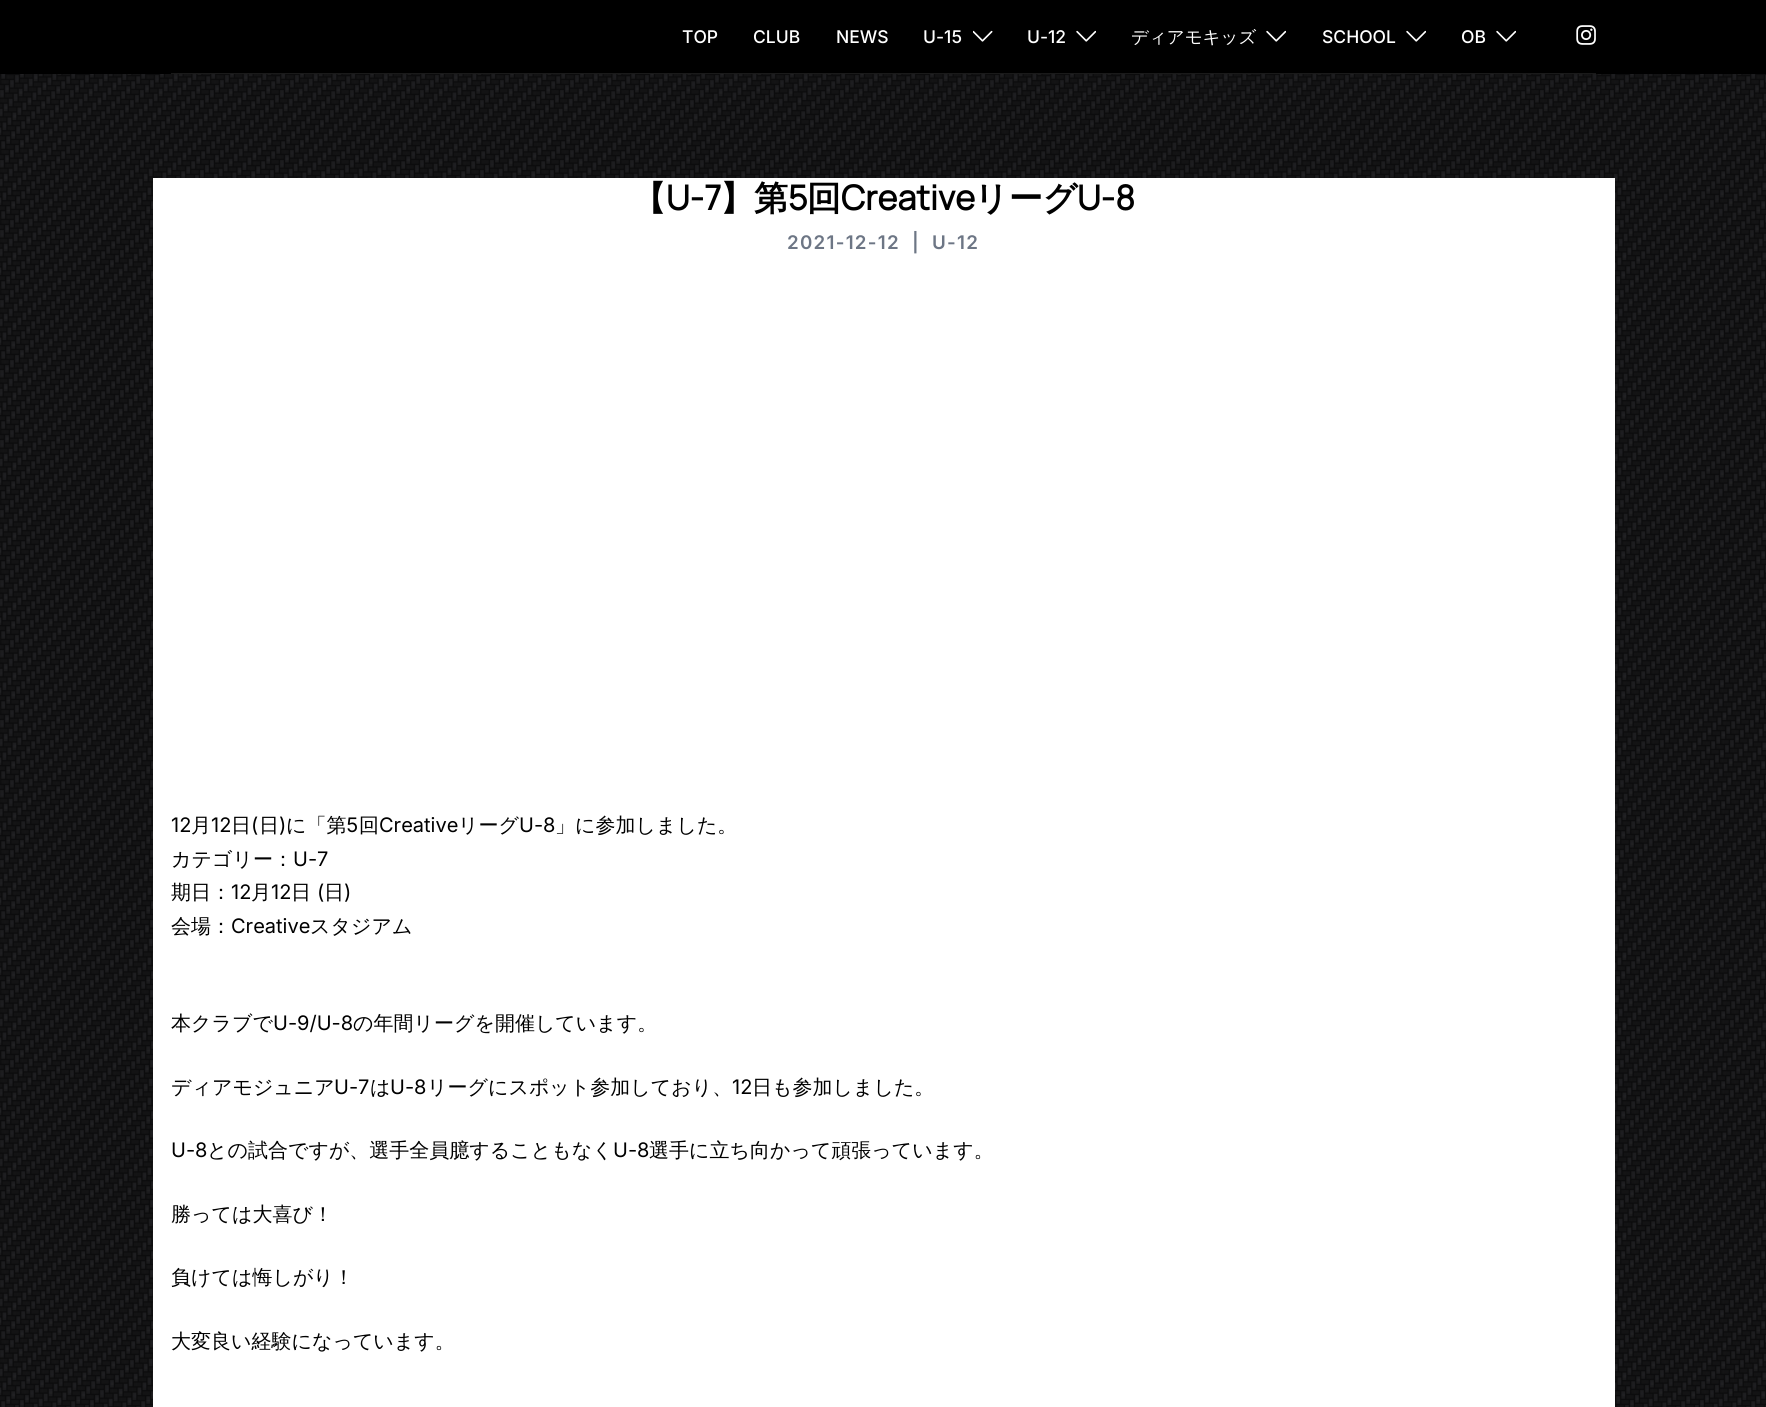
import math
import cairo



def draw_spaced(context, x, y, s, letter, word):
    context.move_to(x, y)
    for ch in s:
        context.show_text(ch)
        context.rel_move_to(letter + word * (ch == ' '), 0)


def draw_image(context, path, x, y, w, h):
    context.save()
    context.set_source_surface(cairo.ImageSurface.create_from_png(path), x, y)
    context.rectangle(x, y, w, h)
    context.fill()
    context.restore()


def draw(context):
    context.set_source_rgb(1, 1, 1)
    context.paint()
    draw_image(context, "images/1.png", 0, 74, 1766, 1333)
    context.set_source_rgb(0, 0, 0)
    context.rectangle(0, 0, 1766, 74)
    context.fill()
    context.set_source_rgb(26 / 255, 26 / 255, 26 / 255)
    context.rectangle(171, 73, 1425, 1)
    context.fill()
    draw_image(context, "images/2.png", 973, 30, 20, 12)
    draw_image(context, "images/3.png", 1076, 30, 20, 12)
    draw_image(context, "images/3.png", 1266, 30, 20, 12)
    draw_image(context, "images/3.png", 1406, 30, 20, 12)
    draw_image(context, "images/3.png", 1496, 30, 20, 12)
    draw_image(context, "images/4.png", 1576, 25, 20, 20)
    context.set_source_rgb(1, 1, 1)
    context.rectangle(153, 178, 1462, 1229)
    context.fill()
    context.select_font_face("Inter Medium")
    context.set_font_size(17.5)
    context.move_to(682, 43)
    context.show_text("TOP")
    context.move_to(753, 43)
    context.show_text("CLUB")
    context.move_to(836, 43)
    context.show_text("NEWS")
    context.move_to(923, 43)
    context.show_text("U-15")
    context.move_to(1027, 43)
    context.show_text("U-12")
    context.select_font_face("WenQuanYi Zen Hei Medium")
    context.move_to(1131, 43)
    context.show_text("ディアモキッズ")
    context.select_font_face("Inter Medium")
    context.move_to(1322, 43)
    context.show_text("SCHOOL")
    context.move_to(1461, 43)
    context.show_text("OB")
    context.select_font_face("WenQuanYi Zen Hei", cairo.FontSlant.NORMAL, cairo.FontWeight.BOLD)
    context.set_font_size(34)
    context.set_source_rgb(0, 0, 0)
    context.move_to(632, 210)
    context.show_text("【")
    context.select_font_face("Manrope", cairo.FontSlant.NORMAL, cairo.FontWeight.BOLD)
    context.move_to(666, 210)
    context.show_text("U-7")
    context.select_font_face("WenQuanYi Zen Hei", cairo.FontSlant.NORMAL, cairo.FontWeight.BOLD)
    context.move_to(720, 210)
    context.show_text("】第")
    context.select_font_face("Manrope", cairo.FontSlant.NORMAL, cairo.FontWeight.BOLD)
    context.move_to(788, 210)
    context.show_text("5")
    context.select_font_face("WenQuanYi Zen Hei", cairo.FontSlant.NORMAL, cairo.FontWeight.BOLD)
    context.move_to(807, 210)
    context.show_text("回")
    context.select_font_face("Manrope", cairo.FontSlant.NORMAL, cairo.FontWeight.BOLD)
    context.move_to(841, 210)
    context.show_text("Creative")
    context.select_font_face("WenQuanYi Zen Hei", cairo.FontSlant.NORMAL, cairo.FontWeight.BOLD)
    context.move_to(974, 210)
    context.show_text("リーグ")
    context.select_font_face("Manrope", cairo.FontSlant.NORMAL, cairo.FontWeight.BOLD)
    context.move_to(1077, 210)
    context.show_text("U-8")
    context.select_font_face("Inter SemiBold")
    context.set_font_size(18.75)
    context.set_source_rgb(109 / 255, 118 / 255, 133 / 255)
    draw_spaced(context, 787, 249, "2021-12-12", 1.25, 0)
    draw_spaced(context, 912, 249, "|", 1.25, 0)
    draw_spaced(context, 932, 249, "U-12", 1.25, 0)
    context.select_font_face("Inter")
    context.set_font_size(20)
    context.set_source_rgb(0, 0, 0)
    context.move_to(171, 832)
    context.show_text("12")
    context.select_font_face("WenQuanYi Zen Hei Medium")
    context.move_to(191, 832)
    context.show_text("月")
    context.select_font_face("Inter")
    context.move_to(211, 832)
    context.show_text("12")
    context.select_font_face("WenQuanYi Zen Hei Medium")
    context.move_to(231, 832)
    context.show_text("日")
    context.select_font_face("Inter")
    context.move_to(251, 832)
    context.show_text("(")
    context.select_font_face("WenQuanYi Zen Hei Medium")
    context.move_to(259, 832)
    context.show_text("日")
    context.select_font_face("Inter")
    context.move_to(279, 832)
    context.show_text(")")
    context.select_font_face("WenQuanYi Zen Hei Medium")
    context.move_to(286, 832)
    context.show_text("に「第")
    context.select_font_face("Inter")
    context.move_to(346, 832)
    context.show_text("5")
    context.select_font_face("WenQuanYi Zen Hei Medium")
    context.move_to(359, 832)
    context.show_text("回")
    context.select_font_face("Inter")
    context.move_to(379, 832)
    context.show_text("Creative")
    context.select_font_face("WenQuanYi Zen Hei Medium")
    context.move_to(458, 832)
    context.show_text("リーグ")
    context.select_font_face("Inter")
    context.move_to(519, 832)
    context.show_text("U-8")
    context.select_font_face("WenQuanYi Zen Hei Medium")
    context.move_to(555, 832)
    context.show_text("」に参加しました。")
    context.move_to(171, 866)
    context.show_text("カテゴリー：")
    context.select_font_face("Inter")
    context.move_to(293, 866)
    context.show_text("U-7")
    context.select_font_face("WenQuanYi Zen Hei Medium")
    context.move_to(171, 899)
    context.show_text("期日：")
    context.select_font_face("Inter")
    context.move_to(231, 899)
    context.show_text("12")
    context.select_font_face("WenQuanYi Zen Hei Medium")
    context.move_to(251, 899)
    context.show_text("月")
    context.select_font_face("Inter")
    context.move_to(271, 899)
    context.show_text("12")
    context.select_font_face("WenQuanYi Zen Hei Medium")
    context.move_to(291, 899)
    context.show_text("日")
    context.select_font_face("Inter")
    context.move_to(317, 899)
    context.show_text("(")
    context.select_font_face("WenQuanYi Zen Hei Medium")
    context.move_to(324, 899)
    context.show_text("日")
    context.select_font_face("Inter")
    context.move_to(344, 899)
    context.show_text(")")
    context.select_font_face("WenQuanYi Zen Hei Medium")
    context.move_to(171, 933)
    context.show_text("会場：")
    context.select_font_face("Inter")
    context.move_to(231, 933)
    context.show_text("Creative")
    context.select_font_face("WenQuanYi Zen Hei Medium")
    context.move_to(310, 933)
    context.show_text("スタジアム")
    context.move_to(171, 1030)
    context.show_text("本クラブで")
    context.select_font_face("Inter")
    context.move_to(273, 1030)
    context.show_text("U-9/U-8")
    context.select_font_face("WenQuanYi Zen Hei Medium")
    context.move_to(353, 1030)
    context.show_text("の年間リーグを開催しています。")
    context.move_to(171, 1094)
    context.show_text("ディアモジュニア")
    context.select_font_face("Inter")
    context.move_to(334, 1094)
    context.show_text("U-7")
    context.select_font_face("WenQuanYi Zen Hei Medium")
    context.move_to(370, 1094)
    context.show_text("は")
    context.select_font_face("Inter")
    context.move_to(390, 1094)
    context.show_text("U-8")
    context.select_font_face("WenQuanYi Zen Hei Medium")
    context.move_to(427, 1094)
    context.show_text("リーグにスポット参加しており、")
    context.select_font_face("Inter")
    context.move_to(732, 1094)
    context.show_text("12")
    context.select_font_face("WenQuanYi Zen Hei Medium")
    context.move_to(752, 1094)
    context.show_text("日も参加しました。")
    context.select_font_face("Inter")
    context.move_to(171, 1157)
    context.show_text("U-8")
    context.select_font_face("WenQuanYi Zen Hei Medium")
    context.move_to(207, 1157)
    context.show_text("との試合ですが、選手全員臆することもなく")
    context.select_font_face("Inter")
    context.move_to(613, 1157)
    context.show_text("U-8")
    context.select_font_face("WenQuanYi Zen Hei Medium")
    context.move_to(649, 1157)
    context.show_text("選手に立ち向かって頑張っています。")
    context.move_to(171, 1221)
    context.show_text("勝っては大喜び！")
    context.move_to(171, 1284)
    context.show_text("負けては悔しがり！")
    context.move_to(171, 1348)
    context.show_text("大変良い経験になっています。")


surface = cairo.ImageSurface(cairo.Format.RGB24, 1766, 1407)
context = cairo.Context(surface)
options = cairo.FontOptions()
options.set_hint_metrics(cairo.HintMetrics.OFF)
options.set_hint_style(cairo.HintStyle.NONE)
context.set_font_options(options)
context.set_miter_limit(4)
draw(context)
surface.write_to_png("out.png")
